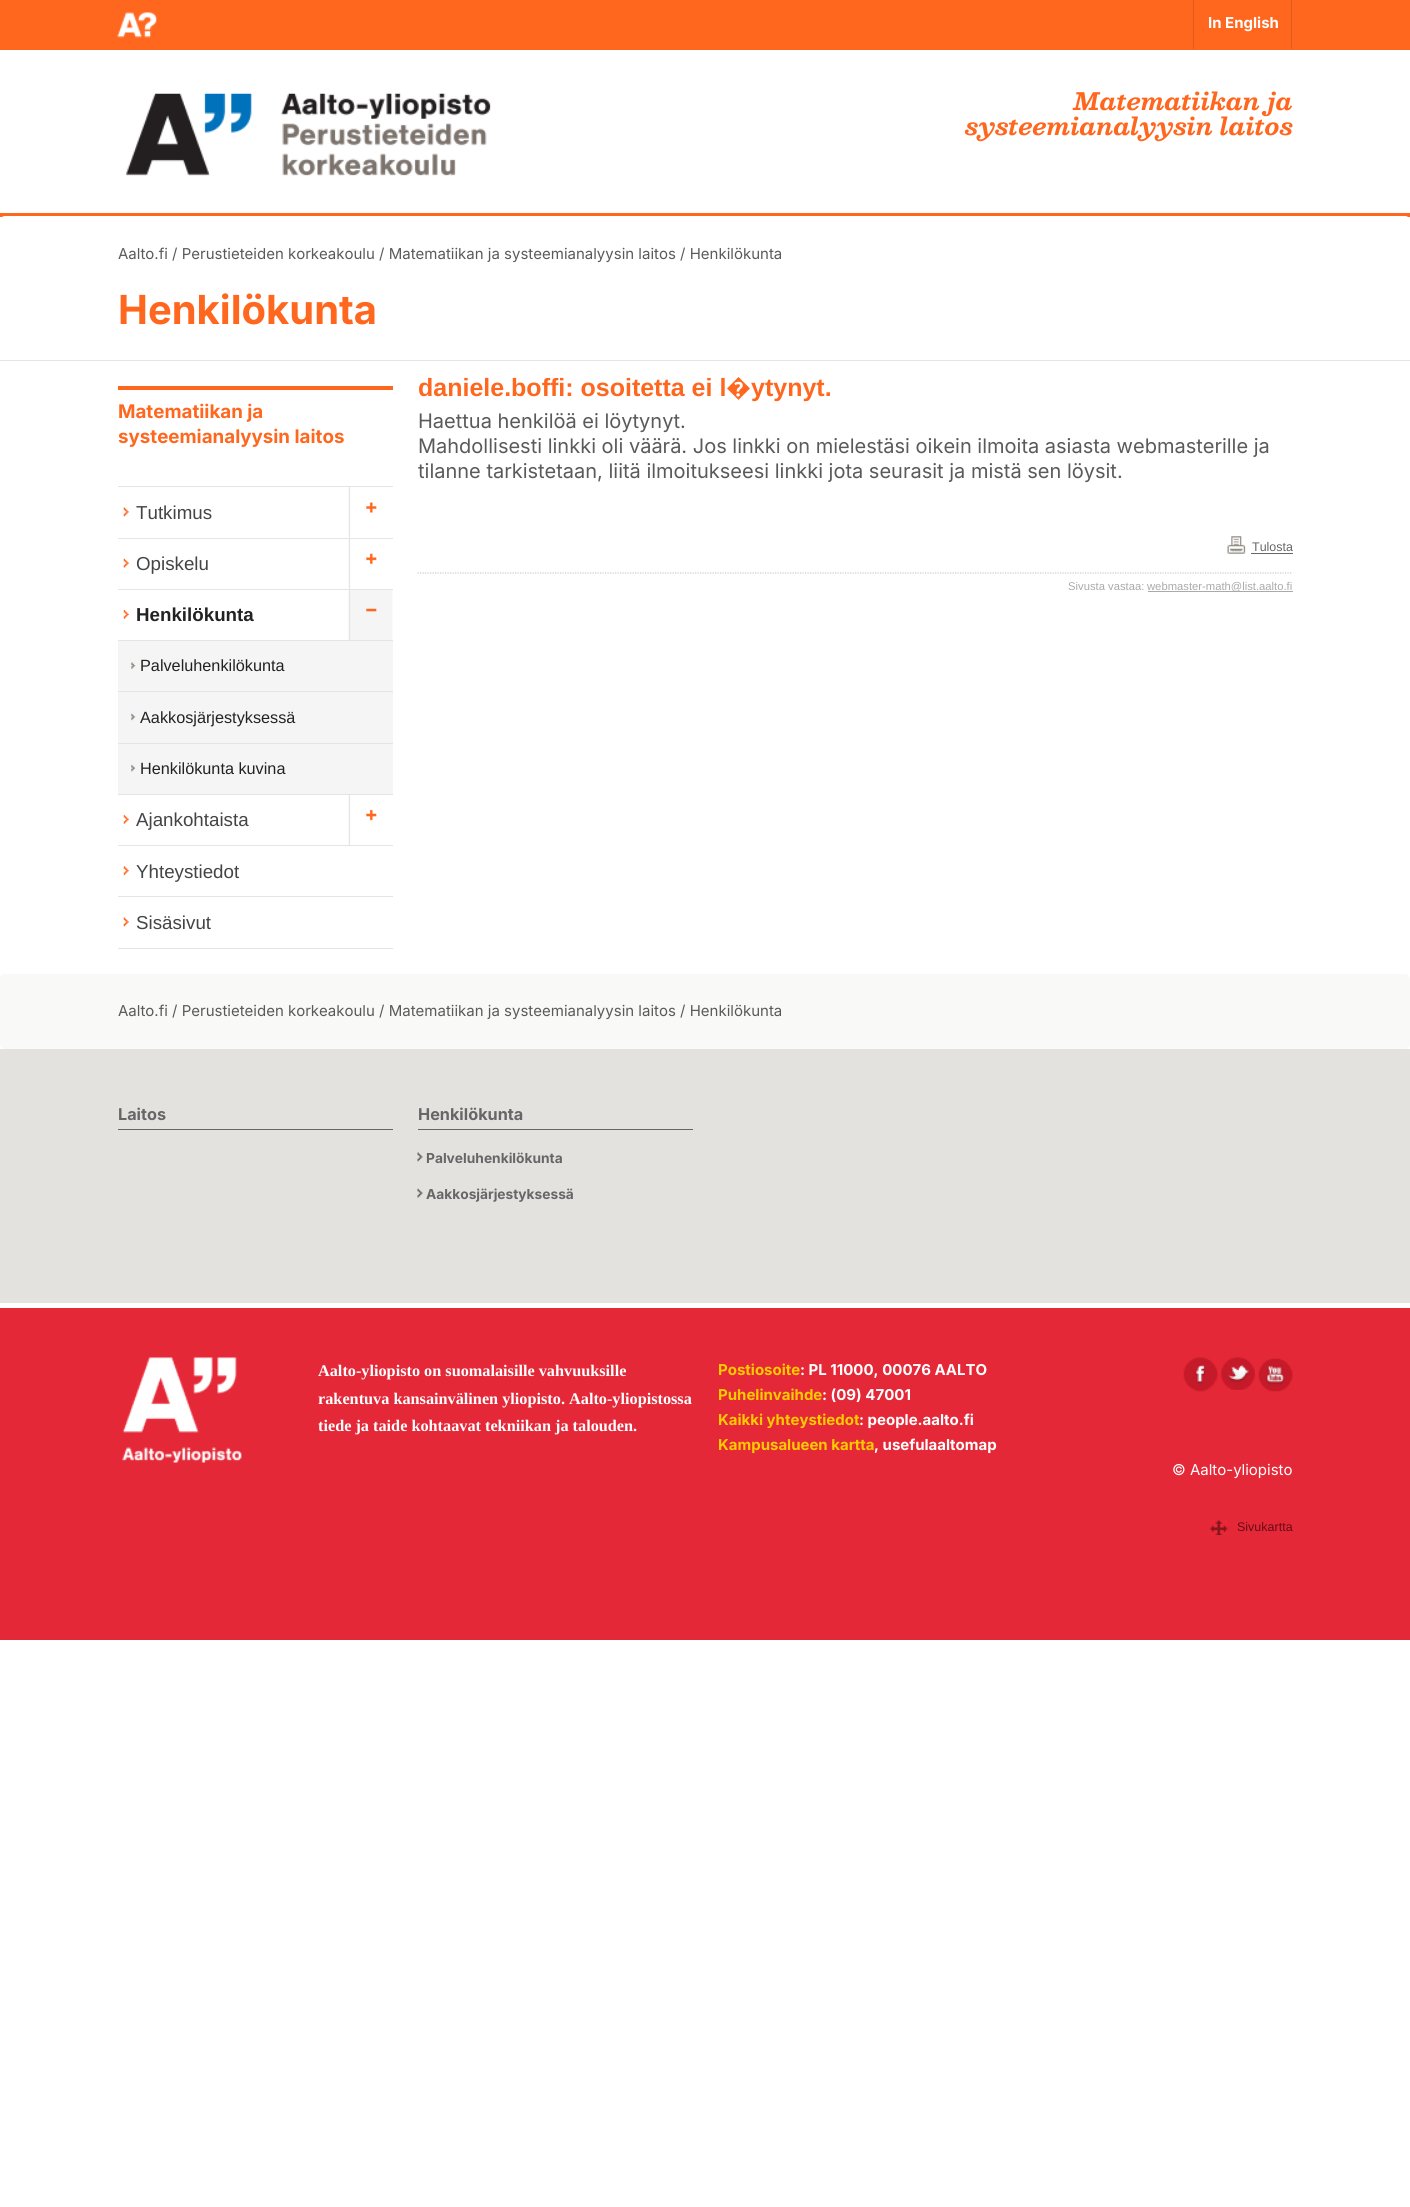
import math
import cairo



def rounded_rect(context, x, y, w, h, r):
    context.new_sub_path()
    for i, (u, v) in enumerate([(x + w - r, y + h - r), (x + r, y + h - r), (x + r, y + r), (x + w - r, y + r)]):
        context.arc(u, v, r, i * math.pi / 2, (i + 1) * math.pi / 2)
    context.close_path()


def draw_image(context, path, x, y, w, h):
    context.save()
    context.set_source_surface(cairo.ImageSurface.create_from_png(path), x, y)
    context.rectangle(x, y, w, h)
    context.fill()
    context.restore()


def draw(context):
    context.set_source_rgb(1, 1, 1)
    context.paint()
    context.set_source_rgb(1, 103 / 255, 31 / 255)
    context.rectangle(0, 0, 1410, 50)
    context.fill()
    draw_image(context, "images/1.png", 117, 12, 40, 26)
    context.set_source_rgb(224 / 255, 90 / 255, 26 / 255)
    context.rectangle(1291, 0, 1, 49)
    context.fill()
    context.rectangle(1193, 0, 1, 49)
    context.fill()
    context.set_source_rgb(1, 103 / 255, 31 / 255)
    context.rectangle(0, 213, 1410, 4)
    context.fill()
    draw_image(context, "images/2.png", 126, 93, 365, 83)
    context.set_source_rgb(1, 1, 1)
    rounded_rect(context, 0, 216, 1410, 69, 5)
    context.fill()
    context.set_source_rgb(228 / 255, 228 / 255, 228 / 255)
    context.rectangle(0, 360, 1410, 1)
    context.fill()
    context.set_source_rgb(1, 103 / 255, 31 / 255)
    context.rectangle(118, 386, 275, 4)
    context.fill()
    draw_image(context, "images/3.png", 348, 487, 29, 51)
    draw_image(context, "images/4.png", 123, 507, 6, 10)
    context.set_source_rgb(228 / 255, 228 / 255, 228 / 255)
    context.rectangle(118, 486, 275, 1)
    context.fill()
    draw_image(context, "images/5.png", 348, 537, 29, 52)
    draw_image(context, "images/6.png", 123, 558, 6, 10)
    context.rectangle(118, 538, 275, 1)
    context.fill()
    draw_image(context, "images/7.png", 348, 590, 45, 50)
    draw_image(context, "images/8.png", 123, 609, 6, 10)
    context.rectangle(118, 589, 275, 1)
    context.fill()
    context.set_source_rgb(245 / 255, 245 / 255, 245 / 255)
    context.rectangle(118, 641, 275, 153)
    context.fill()
    draw_image(context, "images/9.png", 131, 662, 5, 7)
    context.set_source_rgb(228 / 255, 228 / 255, 228 / 255)
    context.rectangle(118, 640, 275, 1)
    context.fill()
    draw_image(context, "images/10.png", 131, 713, 5, 8)
    context.rectangle(118, 691, 275, 1)
    context.fill()
    draw_image(context, "images/11.png", 131, 764, 5, 8)
    context.rectangle(118, 743, 275, 1)
    context.fill()
    draw_image(context, "images/12.png", 348, 795, 29, 50)
    draw_image(context, "images/8.png", 123, 814, 6, 10)
    context.rectangle(118, 794, 275, 1)
    context.fill()
    draw_image(context, "images/13.png", 123, 866, 6, 10)
    context.rectangle(118, 845, 275, 1)
    context.fill()
    draw_image(context, "images/4.png", 123, 917, 6, 10)
    context.rectangle(118, 896, 275, 1)
    context.fill()
    context.rectangle(118, 948, 275, 1)
    context.fill()
    draw_image(context, "images/14.png", 1227, 536, 19, 18)
    context.set_source_rgb(102 / 255, 102 / 255, 102 / 255)
    context.rectangle(1251, 553, 42, 1)
    context.fill()
    context.new_path()
    context.move_to(417.5, 573)
    context.line_to(1292.5, 573)
    context.set_source_rgb(204 / 255, 204 / 255, 204 / 255)
    context.set_line_width(1.2)
    context.set_dash([1.25, 1.25])
    context.stroke()
    context.set_source_rgb(170 / 255, 170 / 255, 170 / 255)
    context.rectangle(1148, 591, 145, 1)
    context.fill()
    context.set_source_rgb(249 / 255, 249 / 255, 248 / 255)
    rounded_rect(context, 0, 974, 1410, 75, 5)
    context.fill()
    context.set_source_rgb(227 / 255, 226 / 255, 223 / 255)
    context.rectangle(0, 1049, 1410, 254)
    context.fill()
    context.set_source_rgb(102 / 255, 102 / 255, 102 / 255)
    context.rectangle(118, 1129, 275, 1)
    context.fill()
    context.rectangle(418, 1129, 275, 1)
    context.fill()
    draw_image(context, "images/15.png", 417, 1152, 6, 10)
    draw_image(context, "images/16.png", 417, 1188, 6, 10)
    context.set_source_rgb(229 / 255, 40 / 255, 55 / 255)
    context.rectangle(0, 1308, 1410, 332)
    context.fill()
    draw_image(context, "images/17.png", 122, 1357, 120, 106)
    draw_image(context, "images/18.png", 1183, 1357, 35, 35)
    draw_image(context, "images/19.png", 1221, 1357, 34, 33)
    draw_image(context, "images/20.png", 1258, 1358, 35, 34)
    draw_image(context, "images/21.png", 1210, 1520, 18, 15)
    context.select_font_face("Inter", cairo.FontSlant.NORMAL, cairo.FontWeight.BOLD)
    context.set_font_size(15)
    context.set_source_rgb(1, 1, 1)
    context.move_to(1208, 28)
    context.show_text("In English")
    context.select_font_face("Besley", cairo.FontSlant.ITALIC, cairo.FontWeight.BOLD)
    context.set_font_size(23.75)
    context.set_source_rgb(1, 103 / 255, 31 / 255)
    context.move_to(1074, 110)
    context.show_text("Matematiikan ja")
    context.move_to(965, 135)
    context.show_text("systeemianalyysin laitos")
    context.select_font_face("Inter")
    context.set_font_size(15)
    context.set_source_rgb(90 / 255, 90 / 255, 90 / 255)
    context.move_to(118, 259)
    context.show_text("Aalto.fi / Perustieteiden korkeakoulu / Matematiikan ja systeemianalyysin laitos / Henkilökunta")
    context.select_font_face("Inter", cairo.FontSlant.NORMAL, cairo.FontWeight.BOLD)
    context.set_font_size(40)
    context.set_source_rgb(1, 103 / 255, 31 / 255)
    context.move_to(118, 324)
    context.show_text("Henkilökunta")
    context.set_font_size(18.75)
    context.move_to(118, 418)
    context.show_text("Matematiikan ja")
    context.move_to(118, 443)
    context.show_text("systeemianalyysin laitos")
    context.select_font_face("Liberation Sans")
    context.set_source_rgb(68 / 255, 68 / 255, 68 / 255)
    context.move_to(136, 519)
    context.show_text("Tutkimus")
    context.move_to(136, 570)
    context.show_text("Opiskelu")
    context.select_font_face("Liberation Sans", cairo.FontSlant.NORMAL, cairo.FontWeight.BOLD)
    context.set_source_rgb(34 / 255, 34 / 255, 34 / 255)
    context.move_to(136, 621)
    context.show_text("Henkilökunta")
    context.select_font_face("Liberation Sans")
    context.set_font_size(16.25)
    context.move_to(140, 671)
    context.show_text("Palveluhenkilökunta")
    context.move_to(140, 723)
    context.show_text("Aakkosjärjestyksessä")
    context.move_to(140, 774)
    context.show_text("Henkilökunta kuvina")
    context.set_font_size(18.75)
    context.set_source_rgb(68 / 255, 68 / 255, 68 / 255)
    context.move_to(136, 826)
    context.show_text("Ajankohtaista")
    context.move_to(136, 878)
    context.show_text("Yhteystiedot")
    context.move_to(136, 929)
    context.show_text("Sisäsivut")
    context.select_font_face("Liberation Sans", cairo.FontSlant.NORMAL, cairo.FontWeight.BOLD)
    context.set_font_size(25)
    context.set_source_rgb(1, 103 / 255, 31 / 255)
    context.move_to(418, 396)
    context.show_text("daniele.boffi: osoitetta ei l")
    context.select_font_face("Noto Sans", cairo.FontSlant.NORMAL, cairo.FontWeight.BOLD)
    context.move_to(726, 396)
    context.show_text("�")
    context.select_font_face("Liberation Sans", cairo.FontSlant.NORMAL, cairo.FontWeight.BOLD)
    context.move_to(751, 396)
    context.show_text("ytynyt.")
    context.select_font_face("Inter")
    context.set_font_size(20)
    context.set_source_rgb(90 / 255, 90 / 255, 90 / 255)
    context.move_to(418, 428)
    context.show_text("Haettua henkilöä ei löytynyt.")
    context.move_to(418, 453)
    context.show_text("Mahdollisesti linkki oli väärä. Jos linkki on mielestäsi oikein ilmoita asiasta webmasterille ja")
    context.move_to(418, 478)
    context.show_text("tilanne tarkistetaan, liitä ilmoitukseesi linkki jota seurasit ja mistä sen löysit.")
    context.select_font_face("Liberation Sans")
    context.set_font_size(12.5)
    context.set_source_rgb(102 / 255, 102 / 255, 102 / 255)
    context.move_to(1252, 551)
    context.show_text("Tulosta")
    context.set_font_size(11.25)
    context.set_source_rgb(170 / 255, 170 / 255, 170 / 255)
    context.move_to(1068, 590)
    context.show_text("Sivusta vastaa:")
    context.move_to(1147, 590)
    context.show_text("webmaster-math@list.aalto.fi")
    context.select_font_face("Inter")
    context.set_font_size(15)
    context.set_source_rgb(90 / 255, 90 / 255, 90 / 255)
    context.move_to(118, 1016)
    context.show_text("Aalto.fi / Perustieteiden korkeakoulu / Matematiikan ja systeemianalyysin laitos / Henkilökunta")
    context.select_font_face("Inter", cairo.FontSlant.NORMAL, cairo.FontWeight.BOLD)
    context.set_font_size(16.25)
    context.set_source_rgb(102 / 255, 102 / 255, 102 / 255)
    context.move_to(118, 1120)
    context.show_text("Laitos")
    context.move_to(418, 1120)
    context.show_text("Henkilökunta")
    context.set_font_size(13.75)
    context.move_to(426, 1163)
    context.show_text("Palveluhenkilökunta")
    context.move_to(426, 1199)
    context.show_text("Aakkosjärjestyksessä")
    context.select_font_face("Liberation Serif", cairo.FontSlant.NORMAL, cairo.FontWeight.BOLD)
    context.set_font_size(16.25)
    context.set_source_rgb(1, 1, 1)
    context.move_to(318, 1376)
    context.show_text("Aalto-yliopisto on suomalaisille vahvuuksille")
    context.move_to(318, 1404)
    context.show_text("rakentuva kansainvälinen yliopisto. Aalto-yliopistossa")
    context.move_to(318, 1431)
    context.show_text("tiede ja taide kohtaavat tekniikan ja talouden.")
    context.select_font_face("Inter", cairo.FontSlant.NORMAL, cairo.FontWeight.BOLD)
    context.set_font_size(15)
    context.set_source_rgb(254 / 255, 203 / 255, 0)
    context.move_to(718, 1375)
    context.show_text("Postiosoite")
    context.set_source_rgb(1, 1, 1)
    context.move_to(800, 1375)
    context.show_text(": PL 11000, 00076 AALTO")
    context.set_source_rgb(254 / 255, 203 / 255, 0)
    context.move_to(718, 1400)
    context.show_text("Puhelinvaihde")
    context.set_source_rgb(1, 1, 1)
    context.move_to(822, 1400)
    context.show_text(": (09) 47001")
    context.set_source_rgb(254 / 255, 203 / 255, 0)
    context.move_to(718, 1425)
    context.show_text("Kaikki yhteystiedot")
    context.set_source_rgb(1, 1, 1)
    context.move_to(859, 1425)
    context.show_text(": people.aalto.fi")
    context.set_source_rgb(254 / 255, 203 / 255, 0)
    context.move_to(718, 1450)
    context.show_text("Kampusalueen kartta")
    context.set_source_rgb(1, 1, 1)
    context.move_to(874, 1450)
    context.show_text(", usefulaaltomap")
    context.select_font_face("Inter")
    context.move_to(1172, 1475)
    context.show_text("© Aalto-yliopisto")
    context.select_font_face("Liberation Sans")
    context.set_font_size(12.5)
    context.set_source_rgb(103 / 255, 11 / 255, 23 / 255)
    context.move_to(1237, 1531)
    context.show_text("Sivukartta")


surface = cairo.ImageSurface(cairo.Format.RGB24, 1410, 2207)
context = cairo.Context(surface)
options = cairo.FontOptions()
options.set_hint_metrics(cairo.HintMetrics.OFF)
options.set_hint_style(cairo.HintStyle.NONE)
context.set_font_options(options)
context.set_miter_limit(4)
draw(context)
surface.write_to_png("out.png")
